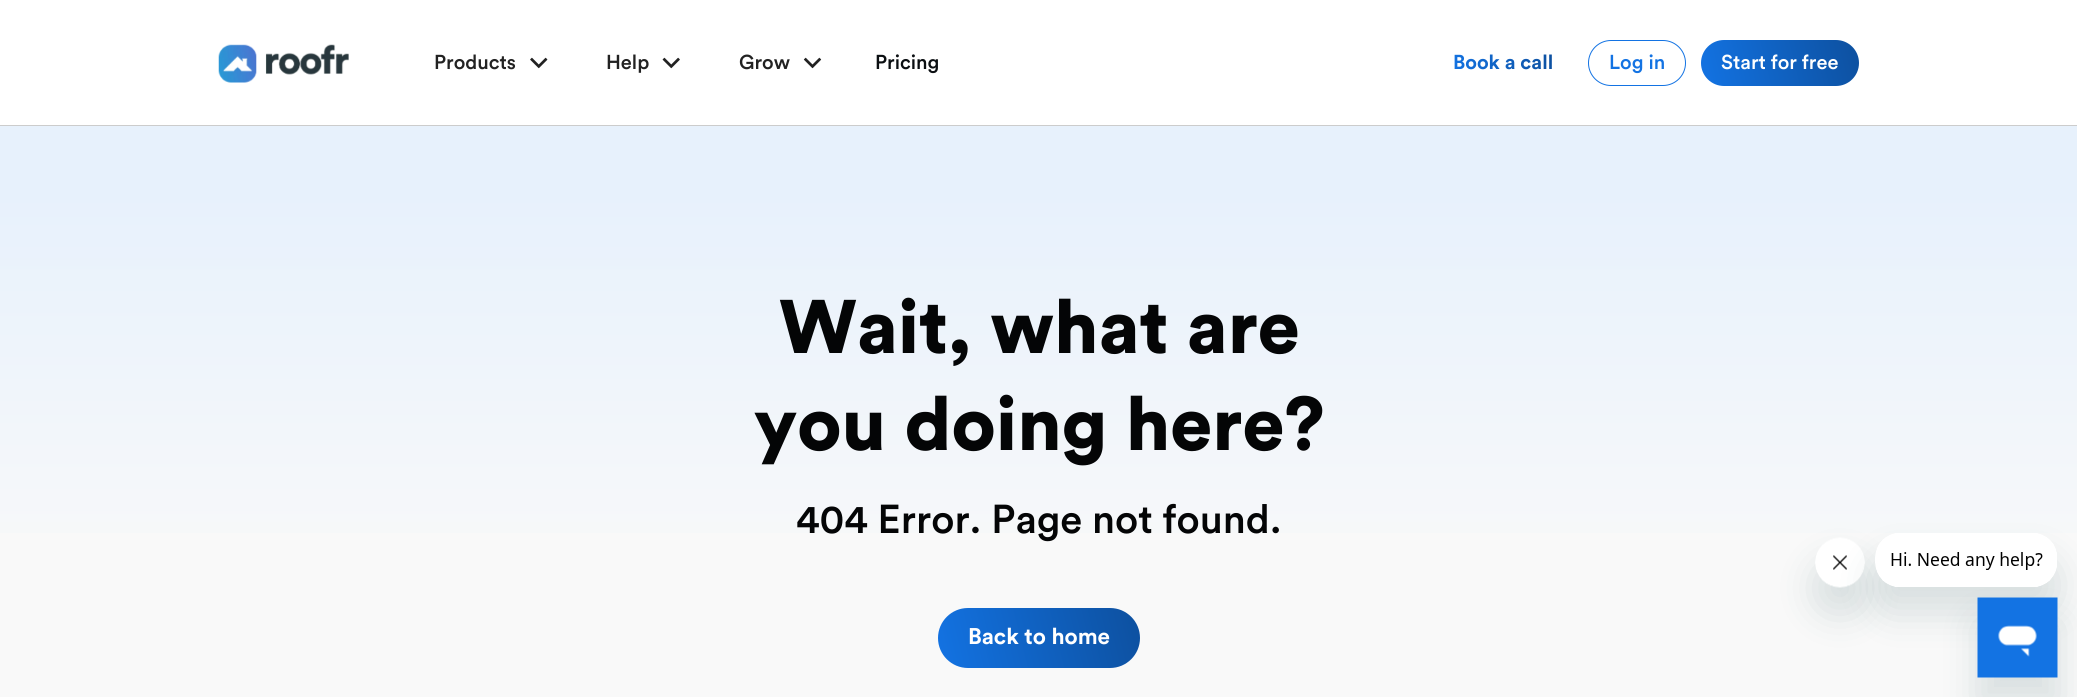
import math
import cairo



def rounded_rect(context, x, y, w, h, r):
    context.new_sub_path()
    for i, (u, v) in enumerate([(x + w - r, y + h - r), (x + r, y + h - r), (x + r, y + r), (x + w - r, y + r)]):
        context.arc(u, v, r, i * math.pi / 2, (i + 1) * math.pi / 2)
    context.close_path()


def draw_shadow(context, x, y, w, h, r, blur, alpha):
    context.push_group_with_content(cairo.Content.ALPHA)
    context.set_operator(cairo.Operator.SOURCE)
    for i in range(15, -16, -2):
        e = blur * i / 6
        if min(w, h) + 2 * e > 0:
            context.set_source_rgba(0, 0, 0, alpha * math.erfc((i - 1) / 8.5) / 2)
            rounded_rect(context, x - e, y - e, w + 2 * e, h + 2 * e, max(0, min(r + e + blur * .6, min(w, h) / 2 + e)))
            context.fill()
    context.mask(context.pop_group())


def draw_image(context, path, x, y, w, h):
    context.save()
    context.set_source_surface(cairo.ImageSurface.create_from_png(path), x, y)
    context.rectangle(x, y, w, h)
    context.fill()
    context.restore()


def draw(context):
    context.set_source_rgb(249 / 255, 249 / 255, 249 / 255)
    context.paint()
    context.set_source_rgb(1, 1, 1)
    context.rectangle(0, 0, 2077, 125)
    context.fill()
    context.set_source_rgb(204 / 255, 204 / 255, 204 / 255)
    context.rectangle(0, 125, 2077, 1)
    context.fill()
    draw_image(context, "images/1.png", 218, 44, 131, 39)
    draw_image(context, "images/2.png", 530, 57, 18, 12)
    draw_image(context, "images/3.png", 662, 57, 18, 12)
    draw_image(context, "images/4.png", 803, 57, 19, 12)
    rounded_rect(context, 1588.5, 40.5, 97, 45, 22.5)
    context.set_source_rgb(19 / 255, 115 / 255, 227 / 255)
    context.set_line_width(1)
    context.stroke()
    gradient = cairo.LinearGradient(1860, 43, 1700, 83)
    gradient.add_color_stop_rgba(0, 13 / 255, 80 / 255, 159 / 255, 1)
    gradient.add_color_stop_rgba(1, 19 / 255, 115 / 255, 227 / 255, 1)
    context.set_source(gradient)
    rounded_rect(context, 1701, 40, 158, 46, 23)
    context.fill()
    gradient = cairo.LinearGradient(1039, 0, 1039, 600)
    gradient.add_color_stop_rgba(0.32, 231 / 255, 241 / 255, 252 / 255, 1)
    gradient.add_color_stop_rgba(0.98, 249 / 255, 249 / 255, 249 / 255, 1)
    context.set_source(gradient)
    context.rectangle(0, 126, 2077, 407)
    context.fill()
    gradient = cairo.LinearGradient(1141, 612, 936, 663)
    gradient.add_color_stop_rgba(0, 13 / 255, 80 / 255, 159 / 255, 1)
    gradient.add_color_stop_rgba(1, 19 / 255, 115 / 255, 227 / 255, 1)
    context.set_source(gradient)
    rounded_rect(context, 938, 608, 202, 60, 30)
    context.fill()
    context.set_source_rgb(23 / 255, 73 / 255, 77 / 255)
    draw_shadow(context, 1815, 563, 50, 50, 25, 19, 0.15)
    draw_image(context, "images/6.png", 1815, 537, 50, 51)
    draw_shadow(context, 1875, 558, 183, 55, 25, 19, 0.15)
    draw_image(context, "images/5.png", 1875, 533, 182, 54)
    draw_shadow(context, 1978, 623, 80, 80, 0, 19, 0.15)
    draw_image(context, "images/7.png", 1977, 597, 81, 81)
    context.select_font_face("Circular Medium")
    context.set_font_size(20)
    context.set_source_rgb(34 / 255, 34 / 255, 34 / 255)
    context.move_to(434, 69)
    context.show_text("Products")
    context.move_to(606, 69)
    context.show_text("Help")
    context.move_to(739, 69)
    context.show_text("Grow")
    context.set_source_rgb(11 / 255, 15 / 255, 18 / 255)
    context.move_to(875, 69)
    context.show_text("Pricing")
    context.select_font_face("Circular", cairo.FontSlant.NORMAL, cairo.FontWeight.BOLD)
    gradient = cairo.LinearGradient(1553, 50, 1452, 76)
    gradient.add_color_stop_rgba(0, 13 / 255, 80 / 255, 159 / 255, 1)
    gradient.add_color_stop_rgba(1, 19 / 255, 115 / 255, 227 / 255, 1)
    context.set_source(gradient)
    context.move_to(1453, 69)
    context.show_text("Book a call")
    context.select_font_face("Circular Medium")
    context.set_source_rgb(19 / 255, 115 / 255, 227 / 255)
    context.move_to(1609, 69)
    context.show_text("Log in")
    context.set_source_rgb(1, 1, 1)
    context.move_to(1721, 69)
    context.show_text("Start for free")
    context.select_font_face("Circular Black")
    context.set_font_size(75)
    context.set_source_rgb(4 / 255, 5 / 255, 6 / 255)
    context.move_to(779, 353)
    context.show_text("Wait, what are")
    context.move_to(754, 450)
    context.show_text("you doing here?")
    context.select_font_face("Circular Medium")
    context.set_font_size(40)
    context.move_to(796, 533)
    context.show_text("404 Error. Page not found.")
    context.select_font_face("Circular", cairo.FontSlant.NORMAL, cairo.FontWeight.BOLD)
    context.set_font_size(22.5)
    context.set_source_rgb(1, 1, 1)
    context.move_to(968, 644)
    context.show_text("Back to home")


surface = cairo.ImageSurface(cairo.Format.RGB24, 2077, 697)
context = cairo.Context(surface)
options = cairo.FontOptions()
options.set_hint_metrics(cairo.HintMetrics.OFF)
options.set_hint_style(cairo.HintStyle.NONE)
context.set_font_options(options)
context.set_miter_limit(4)
draw(context)
surface.write_to_png("out.png")
